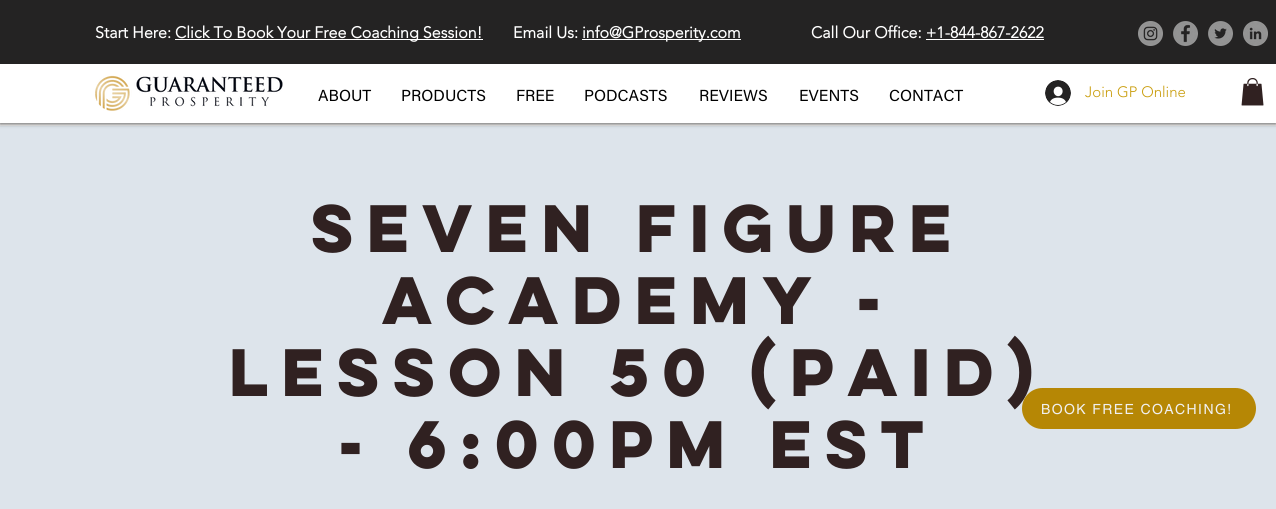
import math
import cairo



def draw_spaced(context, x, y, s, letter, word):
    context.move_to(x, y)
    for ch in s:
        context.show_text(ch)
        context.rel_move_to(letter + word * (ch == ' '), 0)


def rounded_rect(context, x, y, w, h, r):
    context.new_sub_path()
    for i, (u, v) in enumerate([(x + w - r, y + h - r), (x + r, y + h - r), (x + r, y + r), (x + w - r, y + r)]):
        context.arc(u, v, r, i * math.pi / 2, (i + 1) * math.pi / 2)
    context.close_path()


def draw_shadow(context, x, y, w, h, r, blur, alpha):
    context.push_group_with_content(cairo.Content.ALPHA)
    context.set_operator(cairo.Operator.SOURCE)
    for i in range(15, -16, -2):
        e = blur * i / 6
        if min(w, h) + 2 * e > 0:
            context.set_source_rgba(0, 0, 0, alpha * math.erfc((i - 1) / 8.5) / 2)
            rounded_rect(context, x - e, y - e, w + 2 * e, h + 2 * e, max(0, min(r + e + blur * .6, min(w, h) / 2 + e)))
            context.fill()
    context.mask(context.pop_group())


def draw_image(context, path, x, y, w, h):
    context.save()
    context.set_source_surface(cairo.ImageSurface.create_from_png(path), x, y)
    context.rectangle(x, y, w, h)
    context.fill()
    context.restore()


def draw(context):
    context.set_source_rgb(240 / 255, 240 / 255, 240 / 255)
    context.paint()
    context.set_source_rgb(221 / 255, 228 / 255, 235 / 255)
    context.rectangle(0, 126, 1276, 383)
    context.fill()
    context.set_source_rgb(0, 0, 0)
    draw_shadow(context, 0, 1, 1276, 123, 0, 2, 0.6)
    context.set_source_rgb(1, 1, 1)
    context.rectangle(0, 64, 1276, 59)
    context.fill()
    context.set_source_rgb(36 / 255, 35 / 255, 35 / 255)
    context.rectangle(0, 0, 1276, 64)
    context.fill()
    context.set_source_rgb(1, 1, 1)
    context.rectangle(175, 39, 308, 1)
    context.fill()
    context.rectangle(582, 39, 159, 1)
    context.fill()
    context.rectangle(926, 39, 118, 1)
    context.fill()
    draw_image(context, "images/1.png", 1138, 21, 25, 25)
    draw_image(context, "images/2.png", 1173, 21, 25, 25)
    draw_image(context, "images/3.png", 1208, 21, 25, 25)
    draw_image(context, "images/4.png", 1243, 21, 25, 25)
    draw_image(context, "images/5.png", 95, 75, 188, 36)
    draw_image(context, "images/6.png", 1045, 80, 26, 26)
    draw_image(context, "images/7.png", 1241, 78, 23, 28)
    context.select_font_face("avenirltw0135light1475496", cairo.FontSlant.NORMAL, cairo.FontWeight.BOLD)
    context.set_font_size(16)
    context.move_to(95, 38)
    context.show_text("Start Here:")
    context.move_to(175, 38)
    context.show_text("Click To Book Your Free Coaching Session!")
    context.move_to(513, 38)
    context.show_text("Email Us:")
    context.move_to(582, 38)
    context.show_text("info@GProsperity.com")
    context.move_to(811, 38)
    context.show_text("Call Our Office: +1-844-867-2622")
    context.select_font_face("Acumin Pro")
    context.set_source_rgb(0, 0, 0)
    context.move_to(318, 101)
    context.show_text("ABOUT")
    context.move_to(401, 101)
    context.show_text("PRODUCTS")
    context.move_to(516, 101)
    context.show_text("FREE")
    context.move_to(584, 101)
    context.show_text("PODCASTS")
    context.move_to(699, 101)
    context.show_text("REVIEWS")
    context.move_to(799, 101)
    context.show_text("EVENTS")
    context.move_to(889, 101)
    context.show_text("CONTACT")
    context.select_font_face("avenirltw0135light1475496 Light")
    context.set_font_size(15)
    context.set_source_rgb(201 / 255, 157 / 255, 12 / 255)
    context.move_to(1085, 97)
    context.show_text("Join GP Online")
    context.select_font_face("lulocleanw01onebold", cairo.FontSlant.NORMAL, cairo.FontWeight.BOLD)
    context.set_font_size(60)
    context.set_source_rgb(48 / 255, 33 / 255, 33 / 255)
    context.move_to(311, 252)
    context.show_text("Seven Figure")
    context.move_to(382, 324)
    context.show_text("Academy -")
    context.move_to(229, 396)
    context.show_text("Lesson 50 (Paid)")
    context.move_to(338, 468)
    context.show_text("- 6:00PM EST")
    context.set_source_rgb(182 / 255, 135 / 255, 5 / 255)
    rounded_rect(context, 1022, 388, 234, 41, 20.5)
    context.fill()
    context.select_font_face("helvetica")
    context.set_font_size(14)
    context.set_source_rgb(240 / 255, 240 / 255, 240 / 255)
    draw_spaced(context, 1041, 414, "BOOK FREE COACHING!", 1.4, 0)


surface = cairo.ImageSurface(cairo.Format.RGB24, 1276, 509)
context = cairo.Context(surface)
options = cairo.FontOptions()
options.set_hint_metrics(cairo.HintMetrics.OFF)
options.set_hint_style(cairo.HintStyle.NONE)
context.set_font_options(options)
context.set_miter_limit(4)
draw(context)
surface.write_to_png("out.png")
